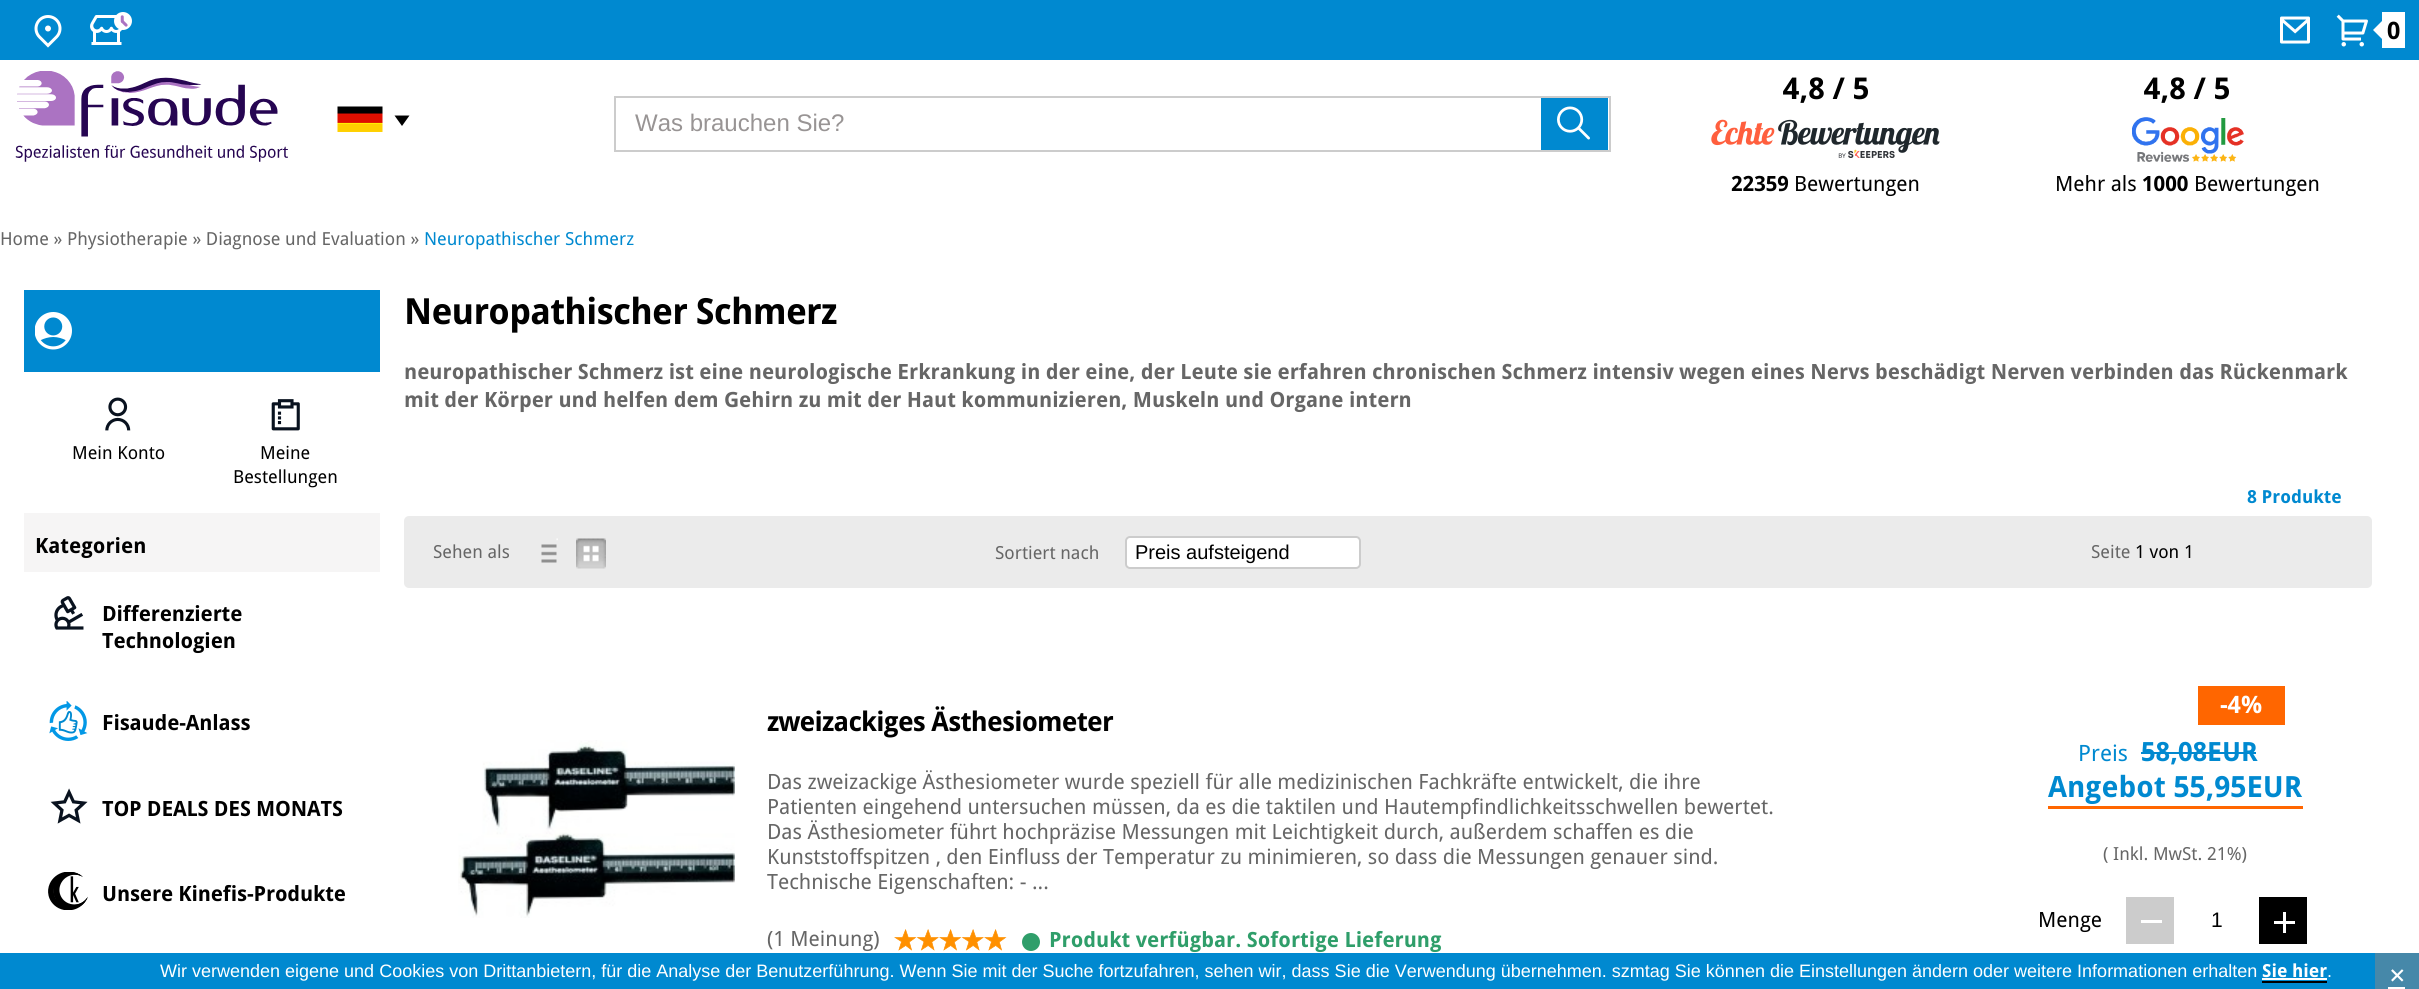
import math
import cairo



def draw_spaced(context, x, y, s, letter, word):
    context.move_to(x, y)
    for ch in s:
        context.show_text(ch)
        context.rel_move_to(letter + word * (ch == ' '), 0)


def rounded_rect(context, x, y, w, h, r):
    context.new_sub_path()
    for i, (u, v) in enumerate([(x + w - r, y + h - r), (x + r, y + h - r), (x + r, y + r), (x + w - r, y + r)]):
        context.arc(u, v, r, i * math.pi / 2, (i + 1) * math.pi / 2)
    context.close_path()


def draw_image(context, path, x, y, w, h):
    context.save()
    context.set_source_surface(cairo.ImageSurface.create_from_png(path), x, y)
    context.rectangle(x, y, w, h)
    context.fill()
    context.restore()


def draw(context):
    context.set_source_rgb(1, 1, 1)
    context.paint()
    context.set_source_rgb(0, 137 / 255, 208 / 255)
    context.rectangle(0, 0, 2419, 60)
    context.fill()
    draw_image(context, "images/1.png", 34, 15, 28, 33)
    draw_image(context, "images/2.png", 90, 12, 42, 33)
    draw_image(context, "images/3.png", 2280, 16, 30, 28)
    draw_image(context, "images/4.png", 2336, 14, 32, 33)
    context.set_source_rgb(1, 1, 1)
    context.rectangle(2382, 12, 23, 36)
    context.fill()
    context.new_path()
    context.move_to(2383.5, 19.5)
    context.line_to(2383.5, 40.5)
    context.line_to(2373, 30)
    context.close_path()
    context.fill()
    draw_image(context, "images/5.png", 15, 71, 273, 91)
    draw_image(context, "images/6.png", 337, 106, 46, 26)
    context.set_source_rgb(0, 0, 0)
    context.new_path()
    context.move_to(394.5, 115.5)
    context.line_to(409.5, 115.5)
    context.line_to(402, 126)
    context.close_path()
    context.fill()
    context.rectangle(615, 97, 995, 54)
    context.set_source_rgb(204 / 255, 204 / 255, 204 / 255)
    context.stroke()
    draw_image(context, "images/7.png", 1541, 98, 67, 52)
    draw_image(context, "images/8.png", 1711, 119, 229, 39)
    draw_image(context, "images/9.png", 2132, 117, 112, 45)
    context.set_source_rgb(246 / 255, 245 / 255, 245 / 255)
    context.rectangle(24, 513, 356, 59)
    context.fill()
    context.set_source_rgb(0, 137 / 255, 208 / 255)
    context.rectangle(24, 290, 356, 82)
    context.fill()
    draw_image(context, "images/10.png", 35, 312, 37, 38)
    draw_image(context, "images/11.png", 105, 397, 26, 34)
    draw_image(context, "images/12.png", 271, 399, 29, 32)
    draw_image(context, "images/13.png", 54, 596, 30, 34)
    draw_image(context, "images/14.png", 49, 701, 39, 40)
    draw_image(context, "images/15.png", 50, 788, 38, 36)
    draw_image(context, "images/16.png", 48, 872, 40, 38)
    context.set_source_rgb(235 / 255, 235 / 255, 235 / 255)
    rounded_rect(context, 404, 516, 1968, 72, 5)
    context.fill()
    draw_image(context, "images/17.png", 541, 538, 17, 25)
    draw_image(context, "images/18.png", 576, 538, 30, 31)
    context.set_source_rgb(1, 1, 1)
    rounded_rect(context, 1126, 537, 234, 31, 4)
    context.fill_preserve()
    context.set_source_rgb(204 / 255, 204 / 255, 204 / 255)
    context.stroke()
    draw_image(context, "images/19.png", 458, 740, 277, 178)
    draw_image(context, "images/20.png", 894, 929, 23, 22)
    draw_image(context, "images/21.png", 917, 929, 22, 22)
    draw_image(context, "images/20.png", 939, 929, 23, 22)
    draw_image(context, "images/21.png", 962, 929, 22, 22)
    draw_image(context, "images/20.png", 984, 929, 23, 22)
    context.set_source_rgb(47 / 255, 158 / 255, 106 / 255)
    context.arc(1031, 942, 9, 0, 2 * math.pi)
    context.fill()
    context.set_source_rgb(1, 102 / 255, 0)
    context.rectangle(2198, 686, 87, 39)
    context.fill()
    context.set_source_rgb(0, 137 / 255, 208 / 255)
    context.rectangle(2141, 752, 115, 2)
    context.fill()
    context.set_source_rgb(1, 102 / 255, 0)
    context.rectangle(2048, 806, 255, 3)
    context.fill()
    context.set_source_rgb(204 / 255, 204 / 255, 204 / 255)
    context.rectangle(2126, 897, 48, 47)
    context.fill()
    context.set_source_rgb(1, 1, 1)
    context.rectangle(2141, 920, 21, 3)
    context.fill()
    context.set_source_rgb(0, 0, 0)
    context.rectangle(2259, 897, 48, 47)
    context.fill()
    draw_image(context, "images/22.png", 2274, 912, 21, 21)
    context.set_source_rgb(0, 137 / 255, 208 / 255)
    context.rectangle(0, 953, 2375, 36)
    context.fill()
    context.set_source_rgb(0, 0, 0)
    context.rectangle(2262, 981, 65, 2)
    context.fill()
    context.set_source_rgb(1, 1, 1)
    context.rectangle(2262, 978, 65, 2)
    context.fill()
    context.set_source_rgb(70 / 255, 136 / 255, 169 / 255)
    context.rectangle(2375, 953, 44, 36)
    context.fill()
    context.set_source_rgb(1, 1, 1)
    context.rectangle(2388, 987, 17, 2)
    context.fill()
    context.select_font_face("Droid Sans", cairo.FontSlant.NORMAL, cairo.FontWeight.BOLD)
    context.set_font_size(24)
    context.set_source_rgb(0, 0, 0)
    context.move_to(2387, 39)
    context.show_text("0")
    context.select_font_face("Liberation Sans")
    context.set_source_rgb(152 / 255, 148 / 255, 148 / 255)
    context.move_to(635, 131)
    context.show_text("Was brauchen Sie?")
    context.select_font_face("Droid Sans", cairo.FontSlant.NORMAL, cairo.FontWeight.BOLD)
    context.set_font_size(30)
    context.set_source_rgb(0, 0, 0)
    context.move_to(1783, 99)
    context.show_text("4,8 / 5")
    context.set_font_size(21)
    context.move_to(1731, 191)
    context.show_text("22359")
    context.select_font_face("Droid Sans")
    context.move_to(1794, 191)
    context.show_text("Bewertungen")
    context.select_font_face("Droid Sans", cairo.FontSlant.NORMAL, cairo.FontWeight.BOLD)
    context.set_font_size(30)
    context.move_to(2144, 99)
    context.show_text("4,8 / 5")
    context.select_font_face("Droid Sans")
    context.set_font_size(21)
    context.move_to(2055, 191)
    context.show_text("Mehr als")
    context.select_font_face("Droid Sans", cairo.FontSlant.NORMAL, cairo.FontWeight.BOLD)
    context.move_to(2142, 191)
    context.show_text("1000")
    context.select_font_face("Droid Sans")
    context.move_to(2194, 191)
    context.show_text("Bewertungen")
    context.set_font_size(18)
    context.set_source_rgb(102 / 255, 102 / 255, 102 / 255)
    context.move_to(0, 245)
    context.show_text("Home » Physiotherapie » Diagnose und Evaluation »")
    context.set_source_rgb(0, 137 / 255, 208 / 255)
    context.move_to(424, 245)
    context.show_text("Neuropathischer Schmerz")
    context.set_source_rgb(0, 0, 0)
    context.move_to(72, 459)
    context.show_text("Mein Konto")
    context.move_to(260, 459)
    context.show_text("Meine")
    context.move_to(233, 483)
    context.show_text("Bestellungen")
    context.select_font_face("Droid Sans", cairo.FontSlant.NORMAL, cairo.FontWeight.BOLD)
    context.set_font_size(21)
    context.move_to(35, 553)
    context.show_text("Kategorien")
    draw_spaced(context, 102, 621, "Differenzierte", -0.15, 0)
    draw_spaced(context, 102, 648, "Technologien", -0.15, 0)
    draw_spaced(context, 102, 730, "Fisaude-Anlass", -0.15, 0)
    draw_spaced(context, 102, 816, "TOP DEALS DES MONATS", -0.15, 0)
    draw_spaced(context, 102, 901, "Unsere Kinefis-Produkte", -0.15, 0)
    context.set_font_size(36)
    draw_spaced(context, 404, 324, "Neuropathischer Schmerz", -0.75, 0)
    context.set_font_size(21)
    context.set_source_rgb(102 / 255, 102 / 255, 102 / 255)
    context.move_to(404, 379)
    context.show_text("neuropathischer Schmerz ist eine neurologische Erkrankung in der eine, der Leute sie erfahren chronischen Schmerz intensiv wegen eines Nervs beschädigt Nerven verbinden das Rückenmark")
    context.move_to(404, 407)
    context.show_text("mit der Körper und helfen dem Gehirn zu mit der Haut kommunizieren, Muskeln und Organe intern")
    context.set_font_size(18)
    context.set_source_rgb(0, 137 / 255, 208 / 255)
    context.move_to(2247, 503)
    context.show_text("8 Produkte")
    context.select_font_face("Droid Sans")
    context.set_source_rgb(102 / 255, 102 / 255, 102 / 255)
    context.move_to(433, 558)
    context.show_text("Sehen als")
    context.move_to(995, 559)
    context.show_text("Sortiert nach")
    context.select_font_face("Liberation Sans")
    context.set_font_size(20)
    context.set_source_rgb(0, 0, 0)
    context.move_to(1135, 559)
    context.show_text("Preis aufsteigend")
    context.select_font_face("Droid Sans")
    context.set_font_size(18)
    context.set_source_rgb(102 / 255, 102 / 255, 102 / 255)
    context.move_to(2091, 558)
    context.show_text("Seite")
    context.set_source_rgb(0, 0, 0)
    context.move_to(2135, 558)
    context.show_text("1 von 1")
    context.select_font_face("Droid Sans", cairo.FontSlant.NORMAL, cairo.FontWeight.BOLD)
    context.set_font_size(27)
    draw_spaced(context, 767, 731, "zweizackiges Ästhesiometer", -0.75, 0)
    context.select_font_face("Droid Sans")
    context.set_font_size(21)
    context.set_source_rgb(102 / 255, 102 / 255, 102 / 255)
    context.move_to(767, 789)
    context.show_text("Das zweizackige Ästhesiometer wurde speziell für alle medizinischen Fachkräfte entwickelt, die ihre")
    context.move_to(767, 814)
    context.show_text("Patienten eingehend untersuchen müssen, da es die taktilen und Hautempfindlichkeitsschwellen bewertet.")
    context.move_to(767, 839)
    context.show_text("Das Ästhesiometer führt hochpräzise Messungen mit Leichtigkeit durch, außerdem schaffen es die")
    context.move_to(767, 864)
    context.show_text("Kunststoffspitzen , den Einfluss der Temperatur zu minimieren, so dass die Messungen genauer sind.")
    context.move_to(767, 889)
    context.show_text("Technische Eigenschaften: - ...")
    context.move_to(767, 946)
    context.show_text("(1 Meinung)")
    context.select_font_face("Droid Sans", cairo.FontSlant.NORMAL, cairo.FontWeight.BOLD)
    context.set_source_rgb(47 / 255, 158 / 255, 106 / 255)
    context.move_to(1049, 947)
    context.show_text("Produkt verfügbar. Sofortige Lieferung")
    context.set_font_size(24)
    context.set_source_rgb(1, 1, 1)
    context.move_to(2220, 713)
    context.show_text("-4%")
    context.set_font_size(26.5)
    context.set_source_rgb(0, 137 / 255, 208 / 255)
    context.move_to(2141, 761)
    context.show_text("58,08EUR")
    context.set_font_size(29.25)
    context.move_to(2048, 797)
    context.show_text("Angebot 55,95EUR")
    context.select_font_face("Droid Sans")
    context.set_font_size(22.5)
    context.move_to(2078, 761)
    context.show_text("Preis")
    context.set_font_size(18)
    context.set_source_rgb(102 / 255, 102 / 255, 102 / 255)
    context.move_to(2103, 860)
    context.show_text("( Inkl. MwSt. 21%)")
    context.set_font_size(21)
    context.set_source_rgb(0, 0, 0)
    context.move_to(2038, 927)
    context.show_text("Menge")
    context.select_font_face("Liberation Sans")
    context.move_to(2211, 927)
    context.show_text("1")
    context.set_font_size(18)
    context.set_source_rgb(1, 1, 1)
    context.move_to(160, 977)
    context.show_text("Wir verwenden eigene und Cookies von Drittanbietern, für die Analyse der Benutzerführung. Wenn Sie mit der Suche fortzufahren, sehen wir, dass Sie die Verwendung übernehmen. szmtag Sie können die Einstellungen ändern oder weitere Informationen erhalten")
    context.select_font_face("Droid Sans", cairo.FontSlant.NORMAL, cairo.FontWeight.BOLD)
    context.move_to(2262, 977)
    context.show_text("Sie hier")
    context.select_font_face("Liberation Sans")
    context.move_to(2327, 977)
    context.show_text(".")
    context.select_font_face("Droid Sans")
    context.set_font_size(30)
    context.move_to(2389, 986)
    context.show_text("×")


surface = cairo.ImageSurface(cairo.Format.RGB24, 2419, 989)
context = cairo.Context(surface)
options = cairo.FontOptions()
options.set_hint_metrics(cairo.HintMetrics.OFF)
options.set_hint_style(cairo.HintStyle.NONE)
context.set_font_options(options)
context.set_miter_limit(4)
draw(context)
surface.write_to_png("out.png")
